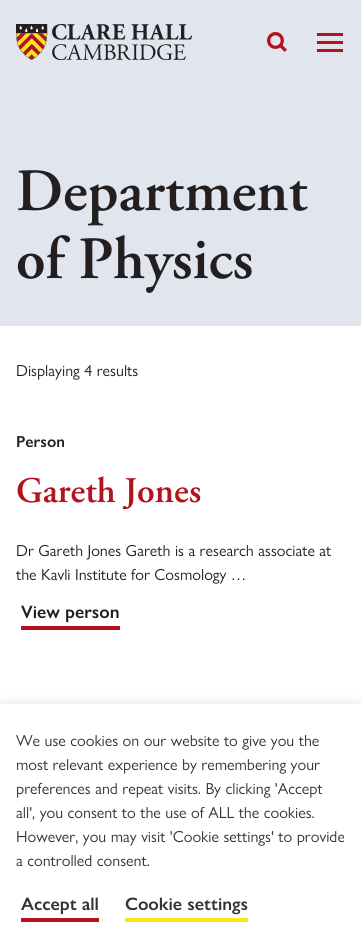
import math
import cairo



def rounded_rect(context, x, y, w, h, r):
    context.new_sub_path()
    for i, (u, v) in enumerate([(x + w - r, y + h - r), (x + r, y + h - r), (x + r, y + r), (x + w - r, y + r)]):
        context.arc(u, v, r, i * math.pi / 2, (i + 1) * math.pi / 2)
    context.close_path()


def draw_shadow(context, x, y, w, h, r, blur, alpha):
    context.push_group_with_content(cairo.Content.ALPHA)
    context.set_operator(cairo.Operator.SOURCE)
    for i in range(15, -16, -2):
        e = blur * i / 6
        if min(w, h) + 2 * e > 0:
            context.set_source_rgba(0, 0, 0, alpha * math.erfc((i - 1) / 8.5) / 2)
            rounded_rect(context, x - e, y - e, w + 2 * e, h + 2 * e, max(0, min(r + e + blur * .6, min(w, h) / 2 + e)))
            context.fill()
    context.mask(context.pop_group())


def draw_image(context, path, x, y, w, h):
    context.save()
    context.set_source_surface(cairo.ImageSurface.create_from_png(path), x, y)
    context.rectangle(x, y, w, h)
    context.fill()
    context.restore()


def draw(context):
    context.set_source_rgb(1, 1, 1)
    context.paint()
    context.set_source_rgb(225 / 255, 229 / 255, 238 / 255)
    context.rectangle(0, 0, 361, 326)
    context.fill()
    draw_image(context, "images/1.png", 16, 24, 176, 36)
    draw_image(context, "images/2.png", 267, 32, 20, 20)
    context.new_path()
    context.move_to(317, 34.5)
    context.line_to(343, 34.5)
    context.move_to(317, 42.5)
    context.line_to(343, 42.5)
    context.move_to(317, 50.5)
    context.line_to(343, 50.5)
    context.set_source_rgb(181 / 255, 18 / 255, 27 / 255)
    context.set_line_width(3)
    context.stroke()
    context.rectangle(21, 626, 99, 4)
    context.fill()
    context.set_source_rgb(172 / 255, 171 / 255, 171 / 255)
    draw_shadow(context, 0, 703, 361, 242, 0, 5, 0.3)
    context.set_source_rgb(1, 1, 1)
    context.rectangle(0, 704, 361, 242)
    context.fill()
    context.set_source_rgb(181 / 255, 18 / 255, 27 / 255)
    context.rectangle(21, 918, 78, 4)
    context.fill()
    context.set_source_rgb(1, 229 / 255, 18 / 255)
    context.rectangle(125, 918, 123, 4)
    context.fill()
    context.select_font_face("Adobe Garamond SemiBold")
    context.set_font_size(60)
    context.set_source_rgb(35 / 255, 31 / 255, 32 / 255)
    context.move_to(16, 210)
    context.show_text("Department")
    context.move_to(16, 278)
    context.show_text("of Physics")
    context.select_font_face("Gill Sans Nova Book")
    context.set_font_size(16)
    context.move_to(16, 376)
    context.show_text("Displaying 4 results")
    context.select_font_face("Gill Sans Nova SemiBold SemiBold")
    context.move_to(16, 447)
    context.show_text("Person")
    context.select_font_face("Adobe Garamond SemiBold")
    context.set_font_size(36)
    context.set_source_rgb(181 / 255, 18 / 255, 27 / 255)
    context.move_to(16, 502)
    context.show_text("Gareth Jones")
    context.select_font_face("Gill Sans Nova Book")
    context.set_font_size(16)
    context.set_source_rgb(35 / 255, 31 / 255, 32 / 255)
    context.move_to(16, 556)
    context.show_text("Dr Gareth Jones Gareth is a research associate at")
    context.move_to(16, 580)
    context.show_text("the Kavli Institute for Cosmology …")
    context.select_font_face("Gill Sans Nova SemiBold SemiBold")
    context.set_font_size(18)
    context.move_to(21, 618)
    context.show_text("View person")
    context.select_font_face("Gill Sans Nova Book")
    context.set_font_size(16)
    context.set_source_rgb(51 / 255, 51 / 255, 51 / 255)
    context.move_to(16, 746)
    context.show_text("We use cookies on our website to give you the")
    context.move_to(16, 770)
    context.show_text("most relevant experience by remembering your")
    context.move_to(16, 794)
    context.show_text("preferences and repeat visits. By clicking 'Accept")
    context.move_to(16, 818)
    context.show_text("all', you consent to the use of ALL the cookies.")
    context.move_to(16, 842)
    context.show_text("However, you may visit 'Cookie settings' to provide")
    context.move_to(16, 866)
    context.show_text("a controlled consent.")
    context.select_font_face("Gill Sans Nova SemiBold SemiBold")
    context.set_font_size(18)
    context.move_to(21, 910)
    context.show_text("Accept all")
    context.move_to(125, 910)
    context.show_text("Cookie settings")


surface = cairo.ImageSurface(cairo.Format.RGB24, 361, 946)
context = cairo.Context(surface)
options = cairo.FontOptions()
options.set_hint_metrics(cairo.HintMetrics.OFF)
options.set_hint_style(cairo.HintStyle.NONE)
context.set_font_options(options)
context.set_miter_limit(4)
draw(context)
surface.write_to_png("out.png")
